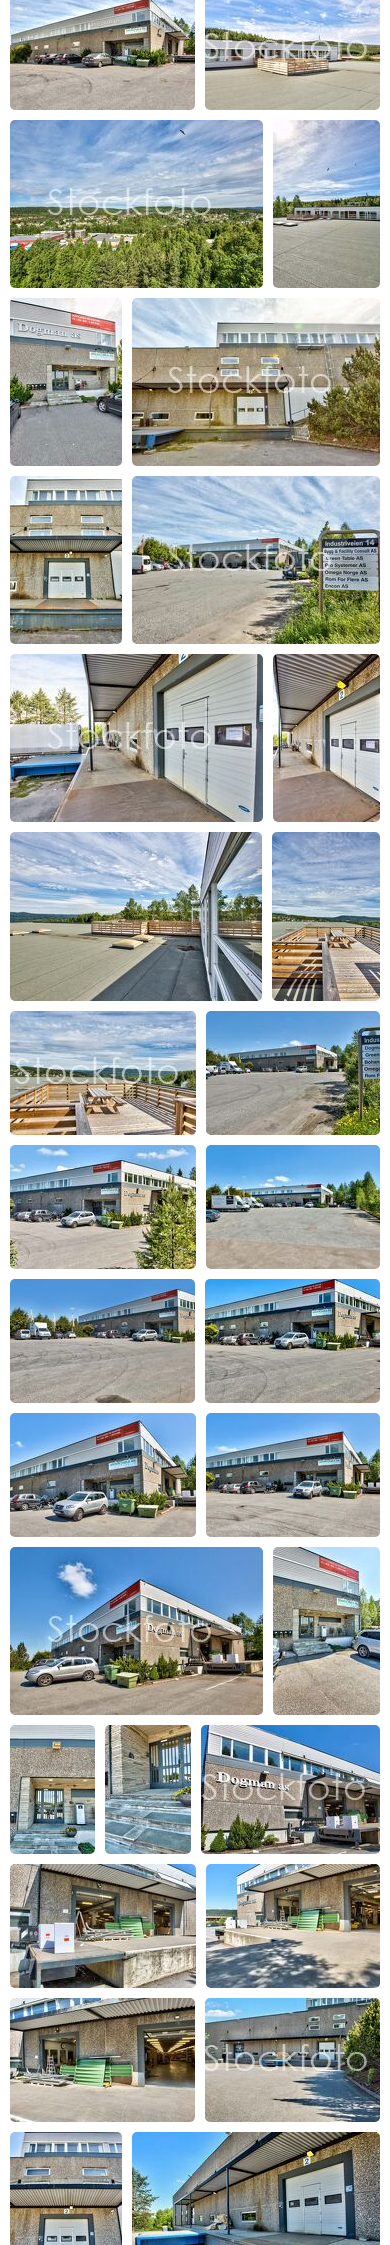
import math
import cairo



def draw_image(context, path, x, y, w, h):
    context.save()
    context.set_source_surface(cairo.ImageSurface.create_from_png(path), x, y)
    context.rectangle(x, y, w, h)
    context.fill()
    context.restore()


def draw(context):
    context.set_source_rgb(1, 1, 1)
    context.paint()
    draw_image(context, "images/1.png", 10, 0, 185, 110)
    draw_image(context, "images/2.png", 205, 0, 175, 110)
    draw_image(context, "images/3.png", 10, 120, 253, 168)
    draw_image(context, "images/4.png", 273, 120, 107, 168)
    draw_image(context, "images/5.png", 10, 298, 112, 168)
    draw_image(context, "images/6.png", 132, 298, 248, 168)
    draw_image(context, "images/7.png", 10, 476, 112, 168)
    draw_image(context, "images/8.png", 132, 476, 248, 168)
    draw_image(context, "images/9.png", 10, 654, 253, 168)
    draw_image(context, "images/10.png", 273, 654, 107, 168)
    draw_image(context, "images/11.png", 10, 832, 252, 169)
    draw_image(context, "images/12.png", 272, 832, 108, 169)
    draw_image(context, "images/13.png", 10, 1011, 186, 124)
    draw_image(context, "images/14.png", 206, 1011, 174, 124)
    draw_image(context, "images/15.png", 10, 1145, 186, 124)
    draw_image(context, "images/16.png", 206, 1145, 174, 124)
    draw_image(context, "images/17.png", 10, 1279, 185, 124)
    draw_image(context, "images/18.png", 205, 1279, 175, 124)
    draw_image(context, "images/19.png", 10, 1413, 186, 124)
    draw_image(context, "images/20.png", 206, 1413, 174, 124)
    draw_image(context, "images/21.png", 10, 1547, 253, 168)
    draw_image(context, "images/22.png", 273, 1547, 107, 168)
    draw_image(context, "images/23.png", 10, 1725, 85, 129)
    draw_image(context, "images/24.png", 105, 1725, 86, 129)
    draw_image(context, "images/25.png", 201, 1725, 179, 129)
    draw_image(context, "images/26.png", 10, 1864, 186, 124)
    draw_image(context, "images/27.png", 206, 1864, 174, 124)
    draw_image(context, "images/28.png", 10, 1998, 185, 124)
    draw_image(context, "images/29.png", 205, 1998, 175, 124)
    draw_image(context, "images/30.png", 10, 2132, 112, 113)
    draw_image(context, "images/31.png", 132, 2132, 248, 113)


surface = cairo.ImageSurface(cairo.Format.RGB24, 390, 2245)
context = cairo.Context(surface)
options = cairo.FontOptions()
options.set_hint_metrics(cairo.HintMetrics.OFF)
options.set_hint_style(cairo.HintStyle.NONE)
context.set_font_options(options)
context.set_miter_limit(4)
draw(context)
surface.write_to_png("out.png")
